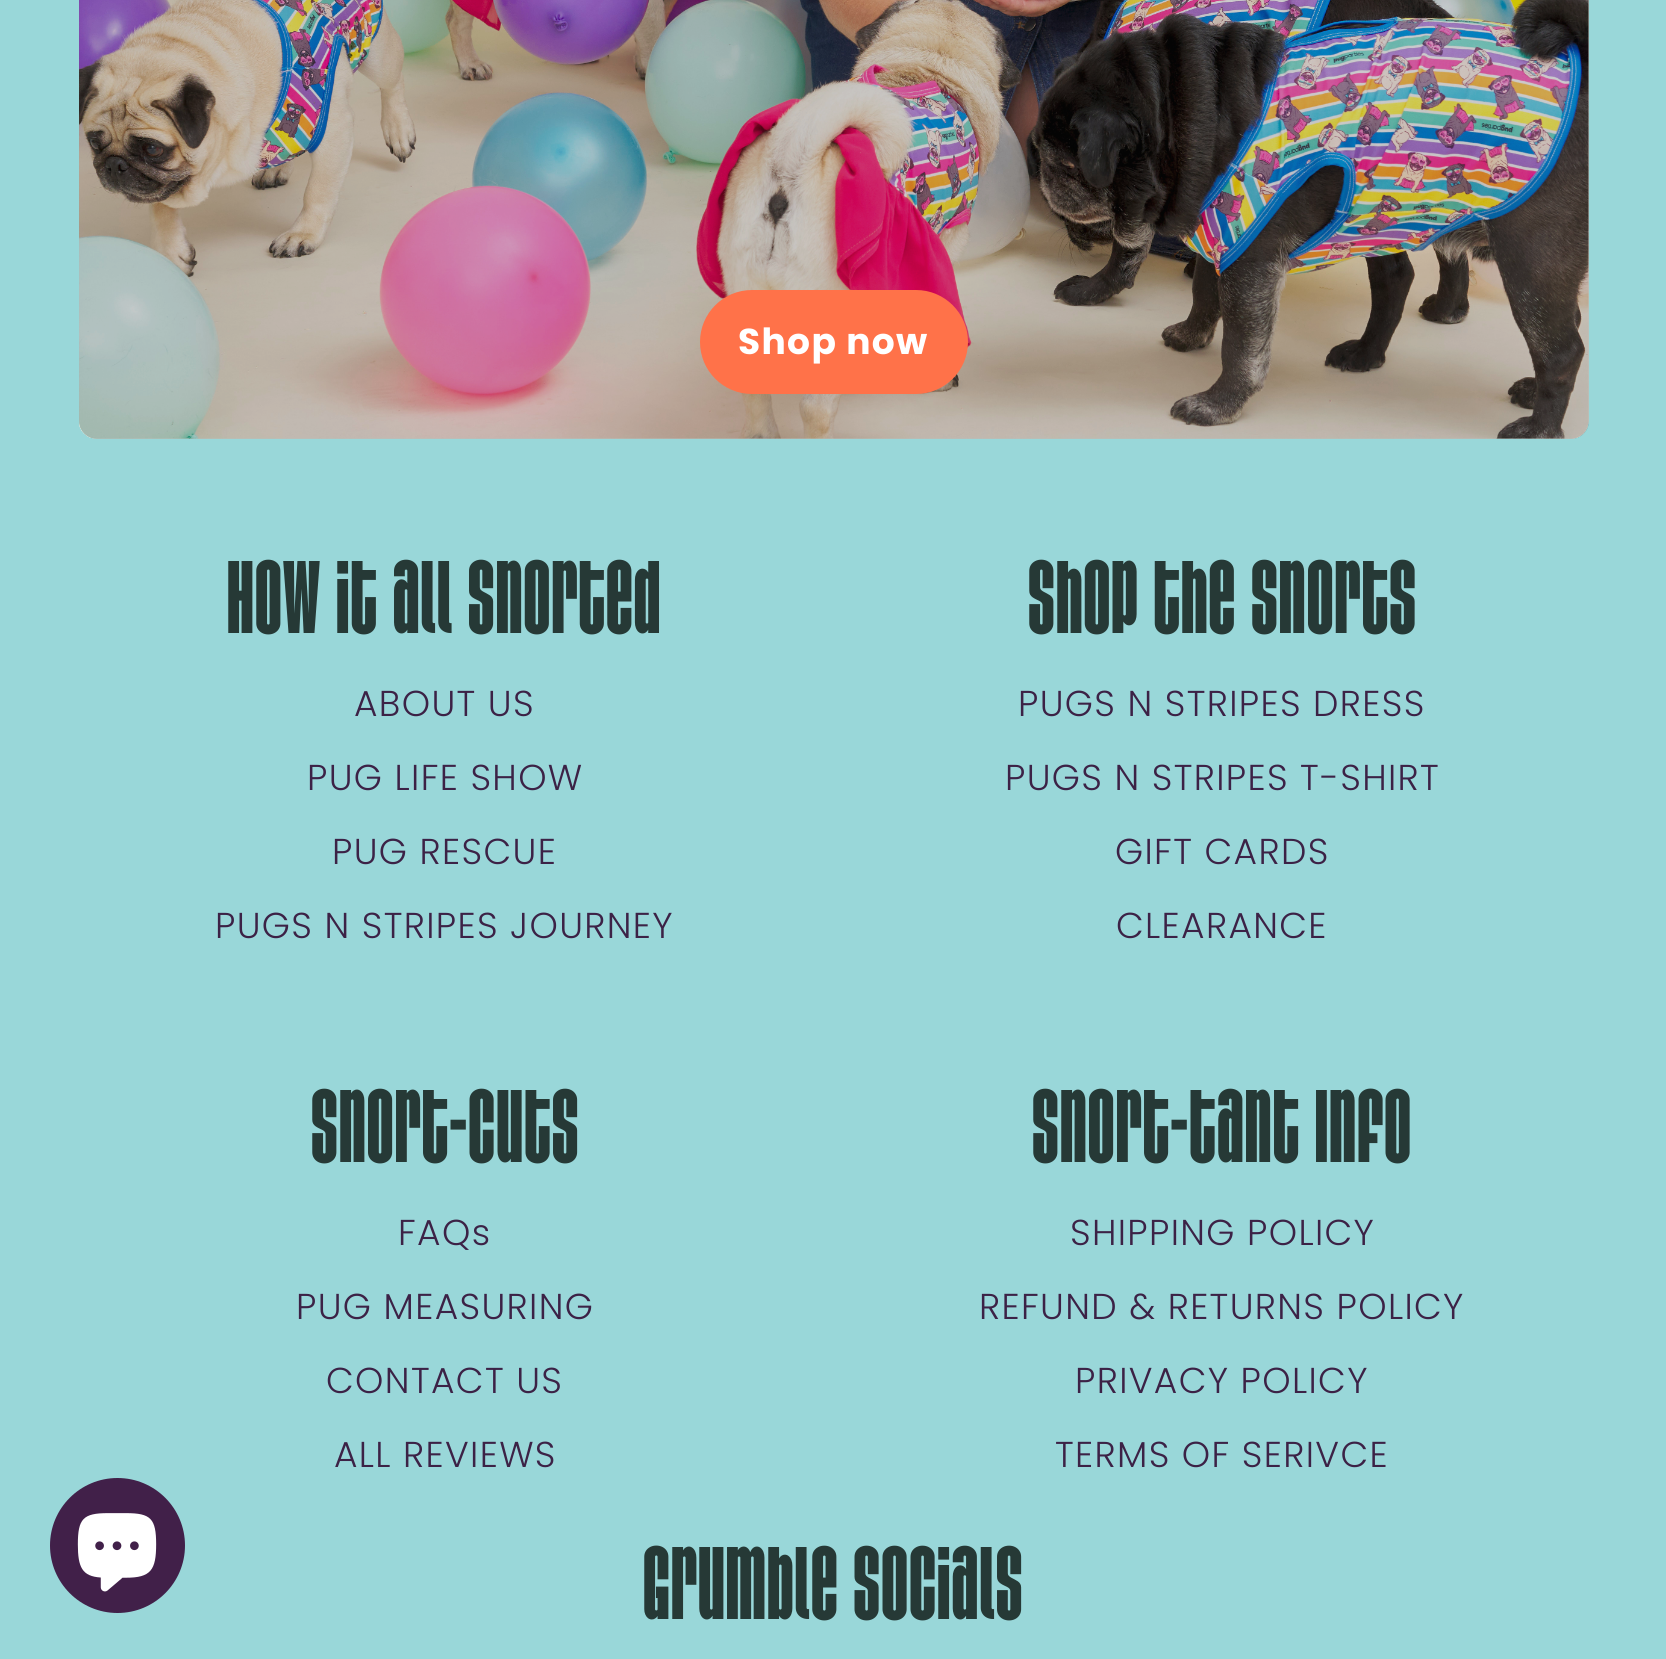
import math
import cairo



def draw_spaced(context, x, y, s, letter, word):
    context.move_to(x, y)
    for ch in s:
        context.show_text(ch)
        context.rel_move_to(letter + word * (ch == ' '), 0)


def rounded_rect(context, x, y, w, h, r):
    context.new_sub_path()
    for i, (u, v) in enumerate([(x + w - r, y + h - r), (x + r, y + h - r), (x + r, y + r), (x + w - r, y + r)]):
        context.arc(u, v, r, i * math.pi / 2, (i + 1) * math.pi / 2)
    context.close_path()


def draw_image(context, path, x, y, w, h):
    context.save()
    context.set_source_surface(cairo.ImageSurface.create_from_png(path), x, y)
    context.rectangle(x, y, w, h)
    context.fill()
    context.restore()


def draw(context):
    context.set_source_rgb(153 / 255, 215 / 255, 217 / 255)
    context.paint()
    context.set_source_rgb(65 / 255, 32 / 255, 73 / 255)
    context.arc(117.5, 1545.5, 67.5, 0, 2 * math.pi)
    context.fill()
    draw_image(context, "images/1.png", 77, 1513, 80, 79)
    draw_image(context, "images/2.png", 79, 0, 1510, 439)
    context.set_source_rgba(18 / 255, 18 / 255, 18 / 255, 0.2)
    rounded_rect(context, 79, -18, 1510, 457, 18)
    context.fill()
    context.set_source_rgb(1, 114 / 255, 73 / 255)
    rounded_rect(context, 701, 291, 266, 102, 51)
    context.fill_preserve()
    context.stroke()
    context.select_font_face("Poppins", cairo.FontSlant.NORMAL, cairo.FontWeight.BOLD)
    context.set_font_size(36)
    context.set_source_rgb(1, 1, 1)
    draw_spaced(context, 738, 354, "Shop now", 1.35, 0)
    context.select_font_face("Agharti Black")
    context.set_font_size(90)
    context.set_source_rgb(38 / 255, 57 / 255, 54 / 255)
    draw_spaced(context, 227, 633, "How it all Snorted", 1.25, 0)
    context.select_font_face("Poppins Light")
    context.set_font_size(36)
    context.set_source_rgb(60 / 255, 34 / 255, 70 / 255)
    draw_spaced(context, 354, 716, "ABOUT US", 1.35, 0)
    draw_spaced(context, 307, 790, "PUG LIFE SHOW", 1.35, 0)
    draw_spaced(context, 332, 864, "PUG RESCUE", 1.35, 0)
    draw_spaced(context, 215, 938, "PUGS N STRIPES JOURNEY", 1.35, 0)
    context.select_font_face("Agharti Black")
    context.set_font_size(90)
    context.set_source_rgb(38 / 255, 57 / 255, 54 / 255)
    draw_spaced(context, 1028, 633, "Shop the Snorts", 1.25, 0)
    context.select_font_face("Poppins Light")
    context.set_font_size(36)
    context.set_source_rgb(60 / 255, 34 / 255, 70 / 255)
    draw_spaced(context, 1018, 716, "PUGS N STRIPES DRESS", 1.35, 0)
    draw_spaced(context, 1005, 790, "PUGS N STRIPES T-SHIRT", 1.35, 0)
    draw_spaced(context, 1115, 864, "GIFT CARDS", 1.35, 0)
    draw_spaced(context, 1116, 938, "CLEARANCE", 1.35, 0)
    context.select_font_face("Agharti Black")
    context.set_font_size(90)
    context.set_source_rgb(38 / 255, 57 / 255, 54 / 255)
    draw_spaced(context, 311, 1162, "Snort-cuts", 1.25, 0)
    context.select_font_face("Poppins Light")
    context.set_font_size(36)
    context.set_source_rgb(60 / 255, 34 / 255, 70 / 255)
    draw_spaced(context, 398, 1245, "FAQs", 1.35, 0)
    draw_spaced(context, 296, 1319, "PUG MEASURING", 1.35, 0)
    draw_spaced(context, 326, 1393, "CONTACT US", 1.35, 0)
    draw_spaced(context, 334, 1467, "ALL REVIEWS", 1.35, 0)
    context.select_font_face("Agharti Black")
    context.set_font_size(90)
    context.set_source_rgb(38 / 255, 57 / 255, 54 / 255)
    draw_spaced(context, 1032, 1162, "Snort-tant Info", 1.25, 0)
    context.select_font_face("Poppins Light")
    context.set_font_size(36)
    context.set_source_rgb(60 / 255, 34 / 255, 70 / 255)
    draw_spaced(context, 1070, 1245, "SHIPPING POLICY", 1.35, 0)
    draw_spaced(context, 979, 1319, "REFUND & RETURNS POLICY", 1.35, 0)
    draw_spaced(context, 1075, 1393, "PRIVACY POLICY", 1.35, 0)
    draw_spaced(context, 1055, 1467, "TERMS OF SERIVCE", 1.35, 0)
    context.select_font_face("Agharti Black")
    context.set_font_size(90)
    context.set_source_rgb(38 / 255, 57 / 255, 54 / 255)
    draw_spaced(context, 643, 1619, "Grumble Socials", 1.25, 0)


surface = cairo.ImageSurface(cairo.Format.RGB24, 1666, 1659)
context = cairo.Context(surface)
options = cairo.FontOptions()
options.set_hint_metrics(cairo.HintMetrics.OFF)
options.set_hint_style(cairo.HintStyle.NONE)
context.set_font_options(options)
context.set_miter_limit(4)
draw(context)
surface.write_to_png("out.png")
